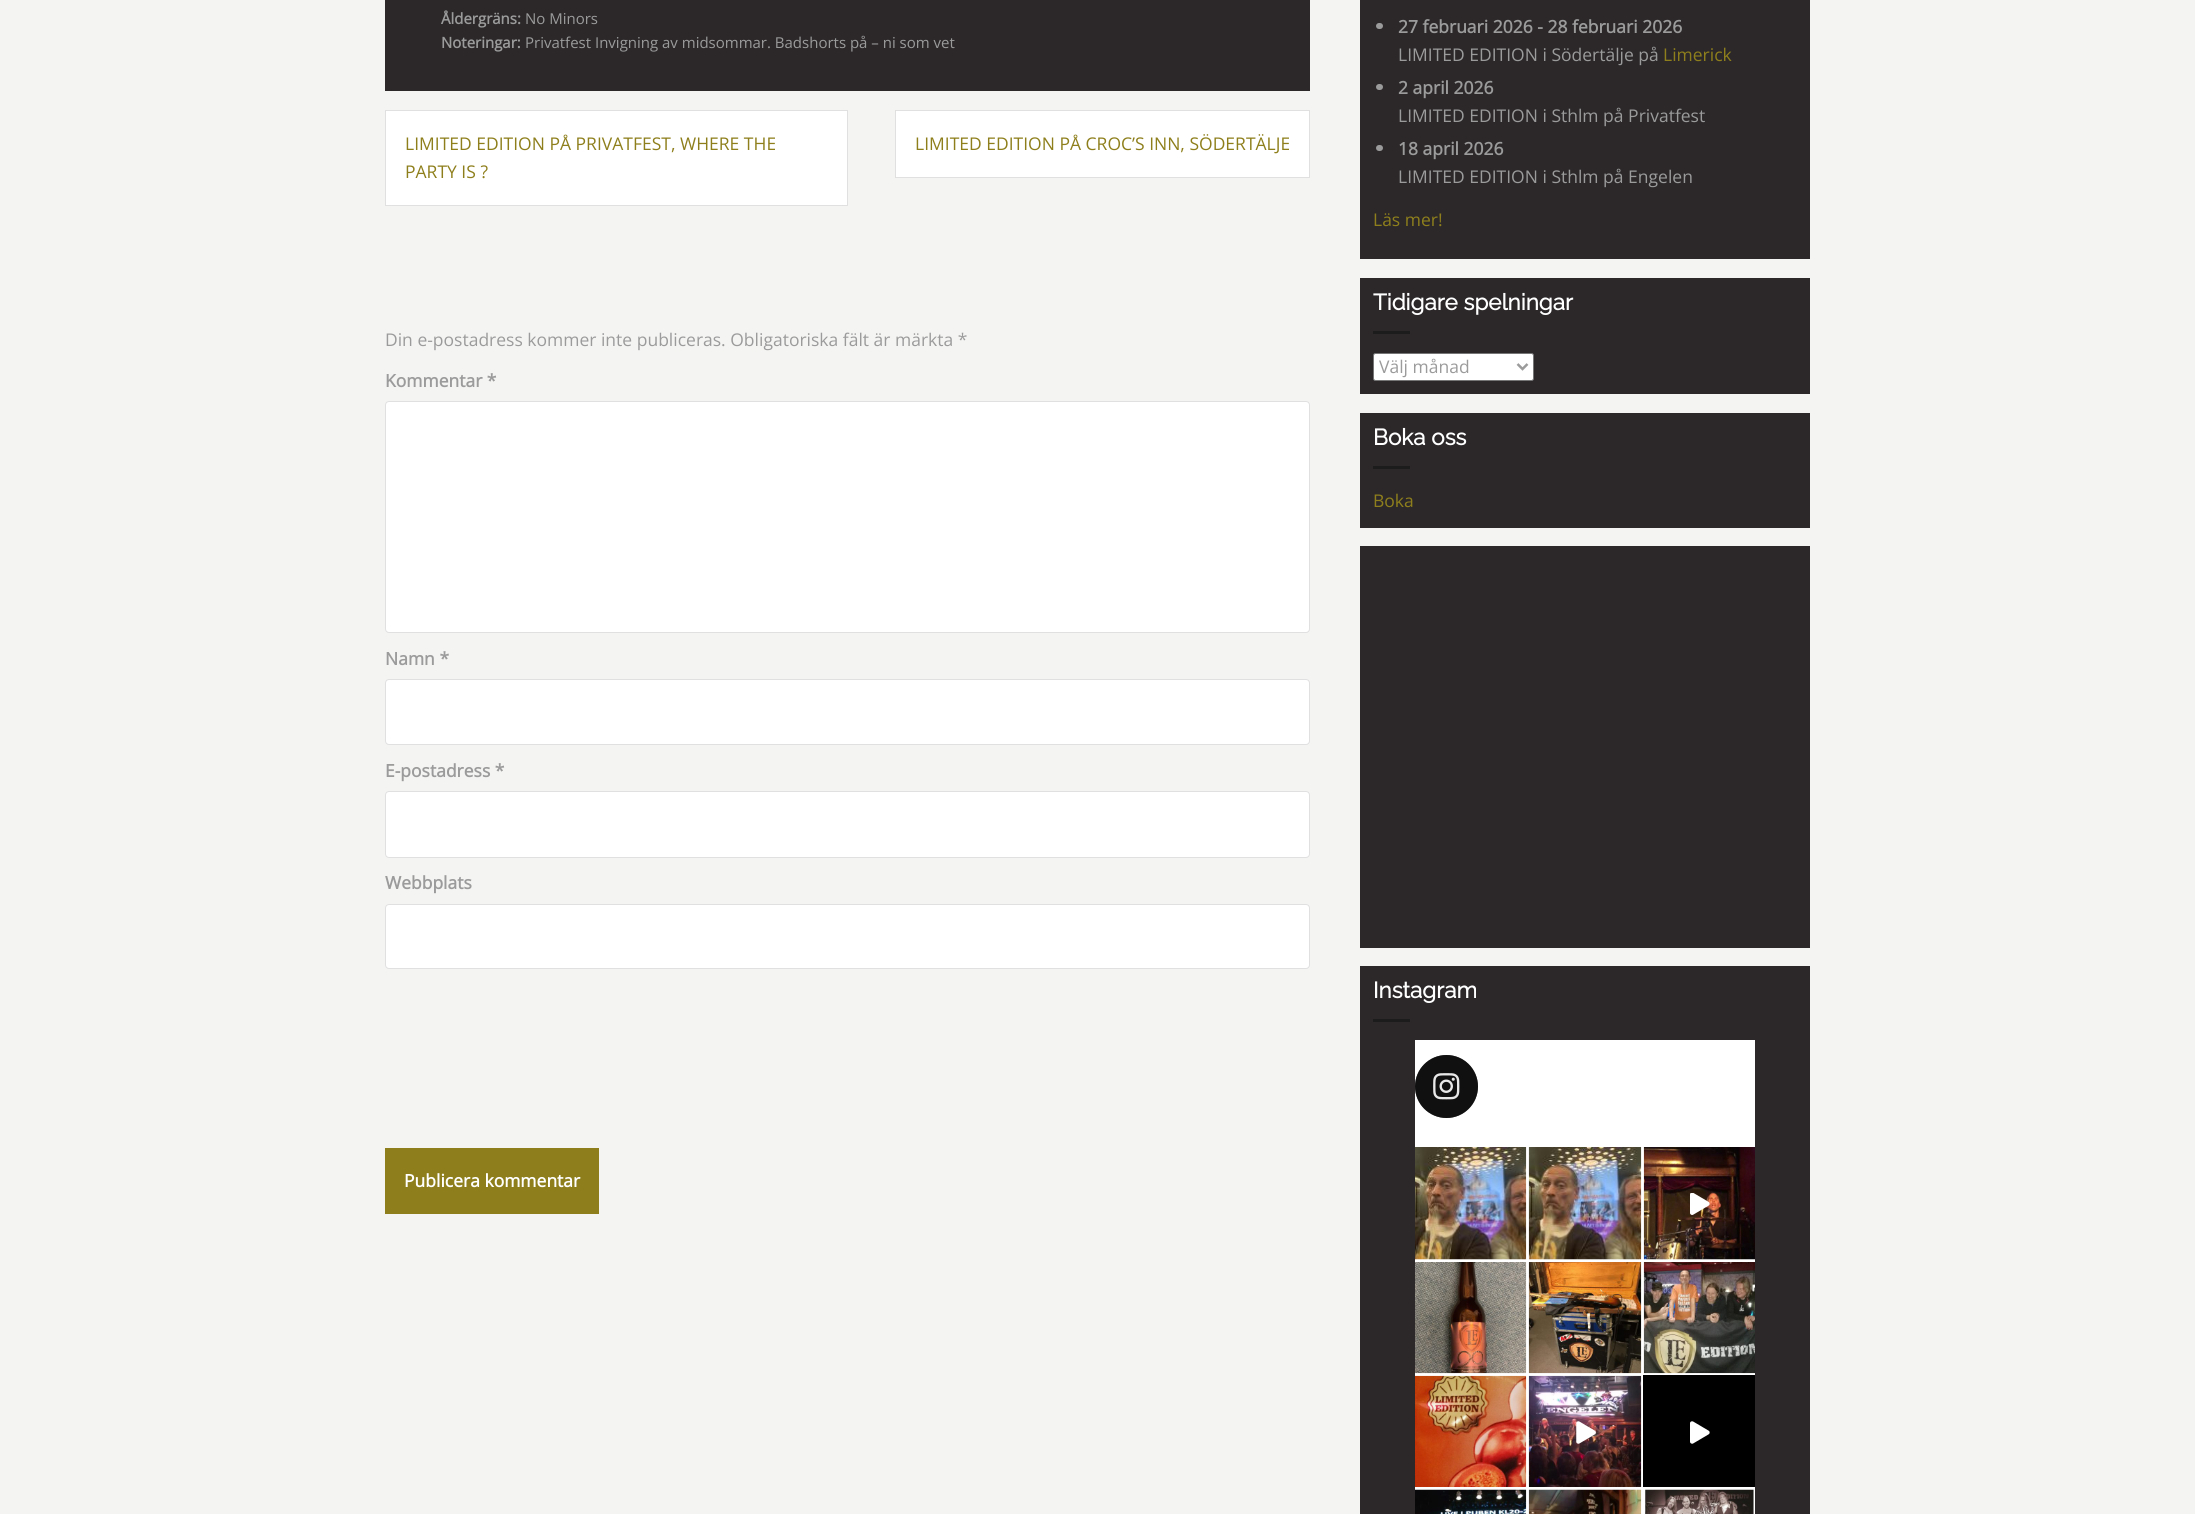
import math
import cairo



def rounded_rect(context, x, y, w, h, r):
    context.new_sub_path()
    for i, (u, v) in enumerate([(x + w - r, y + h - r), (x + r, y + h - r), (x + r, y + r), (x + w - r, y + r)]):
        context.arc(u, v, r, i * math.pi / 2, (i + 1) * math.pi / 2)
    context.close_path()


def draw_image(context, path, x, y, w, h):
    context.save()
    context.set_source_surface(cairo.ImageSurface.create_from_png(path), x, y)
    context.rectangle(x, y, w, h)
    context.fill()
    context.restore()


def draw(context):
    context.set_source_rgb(244 / 255, 244 / 255, 243 / 255)
    context.paint()
    context.set_source_rgb(44 / 255, 40 / 255, 41 / 255)
    context.rectangle(385, 0, 925, 91)
    context.fill()
    context.set_source_rgb(1, 1, 1)
    context.rectangle(385.5, 110.5, 462, 95)
    context.fill_preserve()
    context.set_source_rgb(224 / 255, 224 / 255, 224 / 255)
    context.set_line_width(1)
    context.stroke()
    context.set_source_rgb(1, 1, 1)
    context.rectangle(895.5, 110.5, 414, 67)
    context.fill_preserve()
    context.set_source_rgb(224 / 255, 224 / 255, 224 / 255)
    context.stroke()
    context.set_source_rgb(1, 1, 1)
    rounded_rect(context, 385.5, 401.5, 924, 231, 3.5)
    context.fill_preserve()
    context.set_source_rgb(224 / 255, 224 / 255, 224 / 255)
    context.stroke()
    context.set_source_rgb(1, 1, 1)
    rounded_rect(context, 385.5, 679.5, 924, 65, 3.5)
    context.fill_preserve()
    context.set_source_rgb(224 / 255, 224 / 255, 224 / 255)
    context.stroke()
    context.set_source_rgb(1, 1, 1)
    rounded_rect(context, 385.5, 791.5, 924, 66, 3.5)
    context.fill_preserve()
    context.set_source_rgb(224 / 255, 224 / 255, 224 / 255)
    context.stroke()
    context.set_source_rgb(1, 1, 1)
    rounded_rect(context, 385.5, 904.5, 924, 64, 3.5)
    context.fill_preserve()
    context.set_source_rgb(224 / 255, 224 / 255, 224 / 255)
    context.stroke()
    context.set_source_rgb(142 / 255, 127 / 255, 28 / 255)
    context.rectangle(385, 1148, 214, 66)
    context.fill()
    context.set_source_rgb(44 / 255, 40 / 255, 41 / 255)
    context.rectangle(1360, 0, 450, 259)
    context.fill()
    context.set_source_rgb(155 / 255, 155 / 255, 155 / 255)
    rounded_rect(context, 1376, 23, 7, 6, 3)
    context.fill()
    rounded_rect(context, 1376, 84, 7, 6, 3)
    context.fill()
    rounded_rect(context, 1376, 145, 7, 6, 3)
    context.fill()
    context.set_source_rgb(44 / 255, 40 / 255, 41 / 255)
    context.rectangle(1360, 278, 450, 116)
    context.fill()
    context.set_source_rgb(28 / 255, 28 / 255, 28 / 255)
    context.rectangle(1373, 331, 37, 3)
    context.fill()
    context.set_source_rgb(1, 1, 1)
    rounded_rect(context, 1373.5, 353.5, 160, 27, 2)
    context.fill_preserve()
    context.set_source_rgb(118 / 255, 118 / 255, 118 / 255)
    context.stroke()
    context.new_path()
    context.move_to(1517.5, 364)
    context.line_to(1522.5, 369)
    context.line_to(1527.5, 364)
    context.set_source_rgb(155 / 255, 155 / 255, 155 / 255)
    context.set_line_width(2.5)
    context.stroke()
    context.set_source_rgb(44 / 255, 40 / 255, 41 / 255)
    context.rectangle(1360, 413, 450, 115)
    context.fill()
    context.set_source_rgb(28 / 255, 28 / 255, 28 / 255)
    context.rectangle(1373, 466, 37, 3)
    context.fill()
    context.set_source_rgb(44 / 255, 40 / 255, 41 / 255)
    context.rectangle(1360, 546, 450, 402)
    context.fill()
    context.rectangle(1360, 966, 450, 548)
    context.fill()
    context.set_source_rgb(28 / 255, 28 / 255, 28 / 255)
    context.rectangle(1373, 1019, 37, 3)
    context.fill()
    context.set_source_rgb(1, 1, 1)
    context.rectangle(1415, 1040, 340, 474)
    context.fill()
    context.set_source_rgb(51 / 255, 51 / 255, 51 / 255)
    context.arc(1446.5, 1086.5, 31.5, 0, 2 * math.pi)
    context.fill()
    context.set_source_rgba(0, 0, 0, 0.68)
    context.arc(1446.5, 1086.5, 31.5, 0, 2 * math.pi)
    context.fill()
    draw_image(context, "images/1.png", 1433, 1073, 27, 27)
    draw_image(context, "images/2.png", 1415, 1147, 112, 113)
    draw_image(context, "images/3.png", 1528, 1147, 114, 113)
    draw_image(context, "images/4.png", 1643, 1147, 112, 113)
    draw_image(context, "images/5.png", 1690, 1193, 20, 22)
    draw_image(context, "images/6.png", 1415, 1262, 112, 112)
    draw_image(context, "images/7.png", 1528, 1262, 114, 112)
    draw_image(context, "images/8.png", 1643, 1262, 112, 112)
    draw_image(context, "images/9.png", 1415, 1375, 112, 112)
    draw_image(context, "images/10.png", 1528, 1375, 114, 112)
    draw_image(context, "images/11.png", 1576, 1421, 20, 23)
    context.set_source_rgb(0, 0, 0)
    context.rectangle(1643, 1375, 112, 112)
    context.fill()
    draw_image(context, "images/12.png", 1690, 1421, 20, 23)
    draw_image(context, "images/13.png", 1415, 1489, 112, 25)
    draw_image(context, "images/14.png", 1528, 1489, 114, 25)
    draw_image(context, "images/15.png", 1645, 1489, 109, 25)
    context.select_font_face("Open Sans", cairo.FontSlant.NORMAL, cairo.FontWeight.BOLD)
    context.set_font_size(15)
    context.set_source_rgb(155 / 255, 155 / 255, 155 / 255)
    context.move_to(441, 24)
    context.show_text("Åldergräns:")
    context.select_font_face("Open Sans")
    context.move_to(525, 24)
    context.show_text("No Minors")
    context.select_font_face("Open Sans", cairo.FontSlant.NORMAL, cairo.FontWeight.BOLD)
    context.move_to(441, 48)
    context.show_text("Noteringar:")
    context.select_font_face("Open Sans")
    context.move_to(525, 48)
    context.show_text("Privatfest Invigning av midsommar. Badshorts på – ni som vet")
    context.set_font_size(17.5)
    context.set_source_rgb(142 / 255, 127 / 255, 28 / 255)
    context.move_to(405, 150)
    context.show_text("LIMITED EDITION PÅ PRIVATFEST, WHERE THE")
    context.move_to(405, 178)
    context.show_text("PARTY IS ?")
    context.move_to(915, 150)
    context.show_text("LIMITED EDITION PÅ CROC’S INN, SÖDERTÄLJE")
    context.set_source_rgb(155 / 255, 155 / 255, 155 / 255)
    context.move_to(385, 346)
    context.show_text("Din e-postadress kommer inte publiceras. Obligatoriska fält är märkta *")
    context.select_font_face("Open Sans", cairo.FontSlant.NORMAL, cairo.FontWeight.BOLD)
    context.move_to(385, 387)
    context.show_text("Kommentar *")
    context.move_to(385, 665)
    context.show_text("Namn *")
    context.move_to(385, 777)
    context.show_text("E-postadress *")
    context.move_to(385, 889)
    context.show_text("Webbplats")
    context.set_source_rgb(1, 1, 1)
    context.move_to(404, 1187)
    context.show_text("Publicera kommentar")
    context.set_source_rgb(155 / 255, 155 / 255, 155 / 255)
    context.move_to(1398, 33)
    context.show_text("27 februari 2026 - 28 februari 2026")
    context.select_font_face("Open Sans")
    context.move_to(1398, 61)
    context.show_text("LIMITED EDITION i Södertälje på")
    context.set_source_rgb(142 / 255, 127 / 255, 28 / 255)
    context.move_to(1663, 61)
    context.show_text("Limerick")
    context.select_font_face("Open Sans", cairo.FontSlant.NORMAL, cairo.FontWeight.BOLD)
    context.set_source_rgb(155 / 255, 155 / 255, 155 / 255)
    context.move_to(1398, 94)
    context.show_text("2 april 2026")
    context.select_font_face("Open Sans")
    context.move_to(1398, 122)
    context.show_text("LIMITED EDITION i Sthlm på Privatfest")
    context.select_font_face("Open Sans", cairo.FontSlant.NORMAL, cairo.FontWeight.BOLD)
    context.move_to(1398, 155)
    context.show_text("18 april 2026")
    context.select_font_face("Open Sans")
    context.move_to(1398, 183)
    context.show_text("LIMITED EDITION i Sthlm på Engelen")
    context.set_source_rgb(142 / 255, 127 / 255, 28 / 255)
    context.move_to(1373, 226)
    context.show_text("Läs mer!")
    context.select_font_face("Raleway", cairo.FontSlant.NORMAL, cairo.FontWeight.BOLD)
    context.set_font_size(22.5)
    context.set_source_rgb(1, 1, 1)
    context.move_to(1373, 310)
    context.show_text("Tidigare spelningar")
    context.select_font_face("Open Sans")
    context.set_font_size(17.5)
    context.set_source_rgb(155 / 255, 155 / 255, 155 / 255)
    context.move_to(1379, 373)
    context.show_text("Välj månad")
    context.select_font_face("Raleway", cairo.FontSlant.NORMAL, cairo.FontWeight.BOLD)
    context.set_font_size(22.5)
    context.set_source_rgb(1, 1, 1)
    context.move_to(1373, 445)
    context.show_text("Boka oss")
    context.select_font_face("Open Sans")
    context.set_font_size(17.5)
    context.set_source_rgb(142 / 255, 127 / 255, 28 / 255)
    context.move_to(1373, 507)
    context.show_text("Boka")
    context.select_font_face("Raleway", cairo.FontSlant.NORMAL, cairo.FontWeight.BOLD)
    context.set_font_size(22.5)
    context.set_source_rgb(1, 1, 1)
    context.move_to(1373, 998)
    context.show_text("Instagram")


surface = cairo.ImageSurface(cairo.Format.RGB24, 2195, 1514)
context = cairo.Context(surface)
options = cairo.FontOptions()
options.set_hint_metrics(cairo.HintMetrics.OFF)
options.set_hint_style(cairo.HintStyle.NONE)
context.set_font_options(options)
context.set_miter_limit(4)
draw(context)
surface.write_to_png("out.png")
